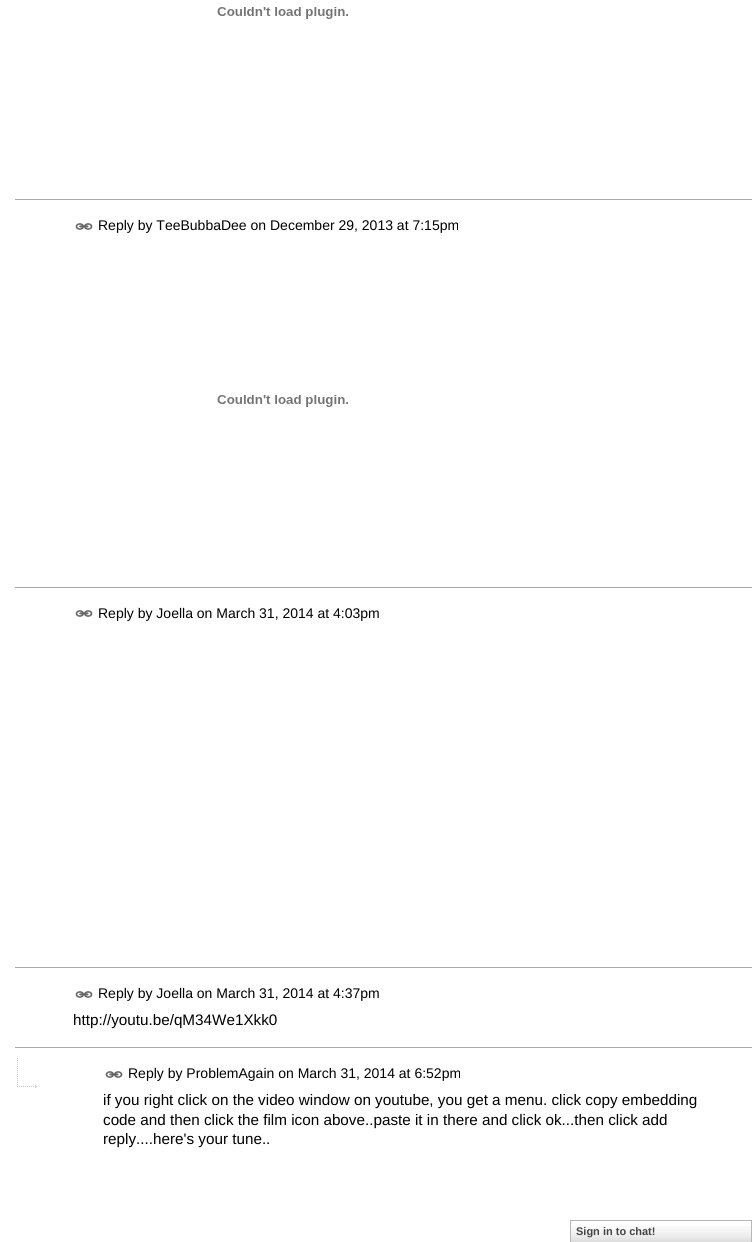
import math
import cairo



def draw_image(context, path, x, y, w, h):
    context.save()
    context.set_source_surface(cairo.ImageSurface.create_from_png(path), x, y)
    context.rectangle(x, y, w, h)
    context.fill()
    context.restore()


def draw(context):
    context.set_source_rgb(1, 1, 1)
    context.paint()
    draw_image(context, "images/1.png", 217, 7, 131, 12)
    context.set_source_rgb(170 / 255, 170 / 255, 170 / 255)
    context.rectangle(15, 199, 737, 1)
    context.fill()
    draw_image(context, "images/2.png", 75, 223, 18, 7)
    draw_image(context, "images/1.png", 217, 395, 131, 12)
    context.rectangle(15, 587, 737, 1)
    context.fill()
    draw_image(context, "images/2.png", 75, 610, 18, 7)
    context.rectangle(15, 967, 737, 1)
    context.fill()
    draw_image(context, "images/2.png", 75, 991, 18, 7)
    draw_image(context, "images/3.png", 17, 1058, 20, 30)
    context.rectangle(15, 1047, 737, 1)
    context.fill()
    draw_image(context, "images/2.png", 105, 1071, 18, 7)
    draw_image(context, "images/4.png", 571, 1226, 180, 16)
    context.rectangle(570.5, 1220.5, 181, 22)
    context.set_source_rgb(183 / 255, 183 / 255, 183 / 255)
    context.set_line_width(1)
    context.stroke()
    context.select_font_face("Liberation Sans")
    context.set_font_size(14)
    context.set_source_rgb(0, 0, 0)
    context.move_to(98, 230)
    context.show_text("Reply by TeeBubbaDee on December 29, 2013 at 7:15pm")
    context.move_to(98, 618)
    context.show_text("Reply by Joella on March 31, 2014 at 4:03pm")
    context.move_to(98, 998)
    context.show_text("Reply by Joella on March 31, 2014 at 4:37pm")
    context.set_font_size(15.25)
    context.move_to(73, 1025)
    context.show_text("http://youtu.be/qM34We1Xkk0")
    context.set_font_size(14)
    context.move_to(128, 1078)
    context.show_text("Reply by ProblemAgain on March 31, 2014 at 6:52pm")
    context.set_font_size(15.25)
    context.move_to(103, 1105)
    context.show_text("if you right click on the video window on youtube, you get a menu. click copy embedding")
    context.move_to(103, 1125)
    context.show_text("code and then click the film icon above..paste it in there and click ok...then click add")
    context.move_to(103, 1144)
    context.show_text("reply....here's your tune..")
    context.select_font_face("Liberation Sans", cairo.FontSlant.NORMAL, cairo.FontWeight.BOLD)
    context.set_font_size(11)
    context.set_source_rgb(69 / 255, 69 / 255, 69 / 255)
    context.move_to(576, 1235)
    context.show_text("Sign in to chat!")


surface = cairo.ImageSurface(cairo.Format.RGB24, 756, 1242)
context = cairo.Context(surface)
options = cairo.FontOptions()
options.set_hint_metrics(cairo.HintMetrics.OFF)
options.set_hint_style(cairo.HintStyle.NONE)
context.set_font_options(options)
context.set_miter_limit(4)
draw(context)
surface.write_to_png("out.png")
